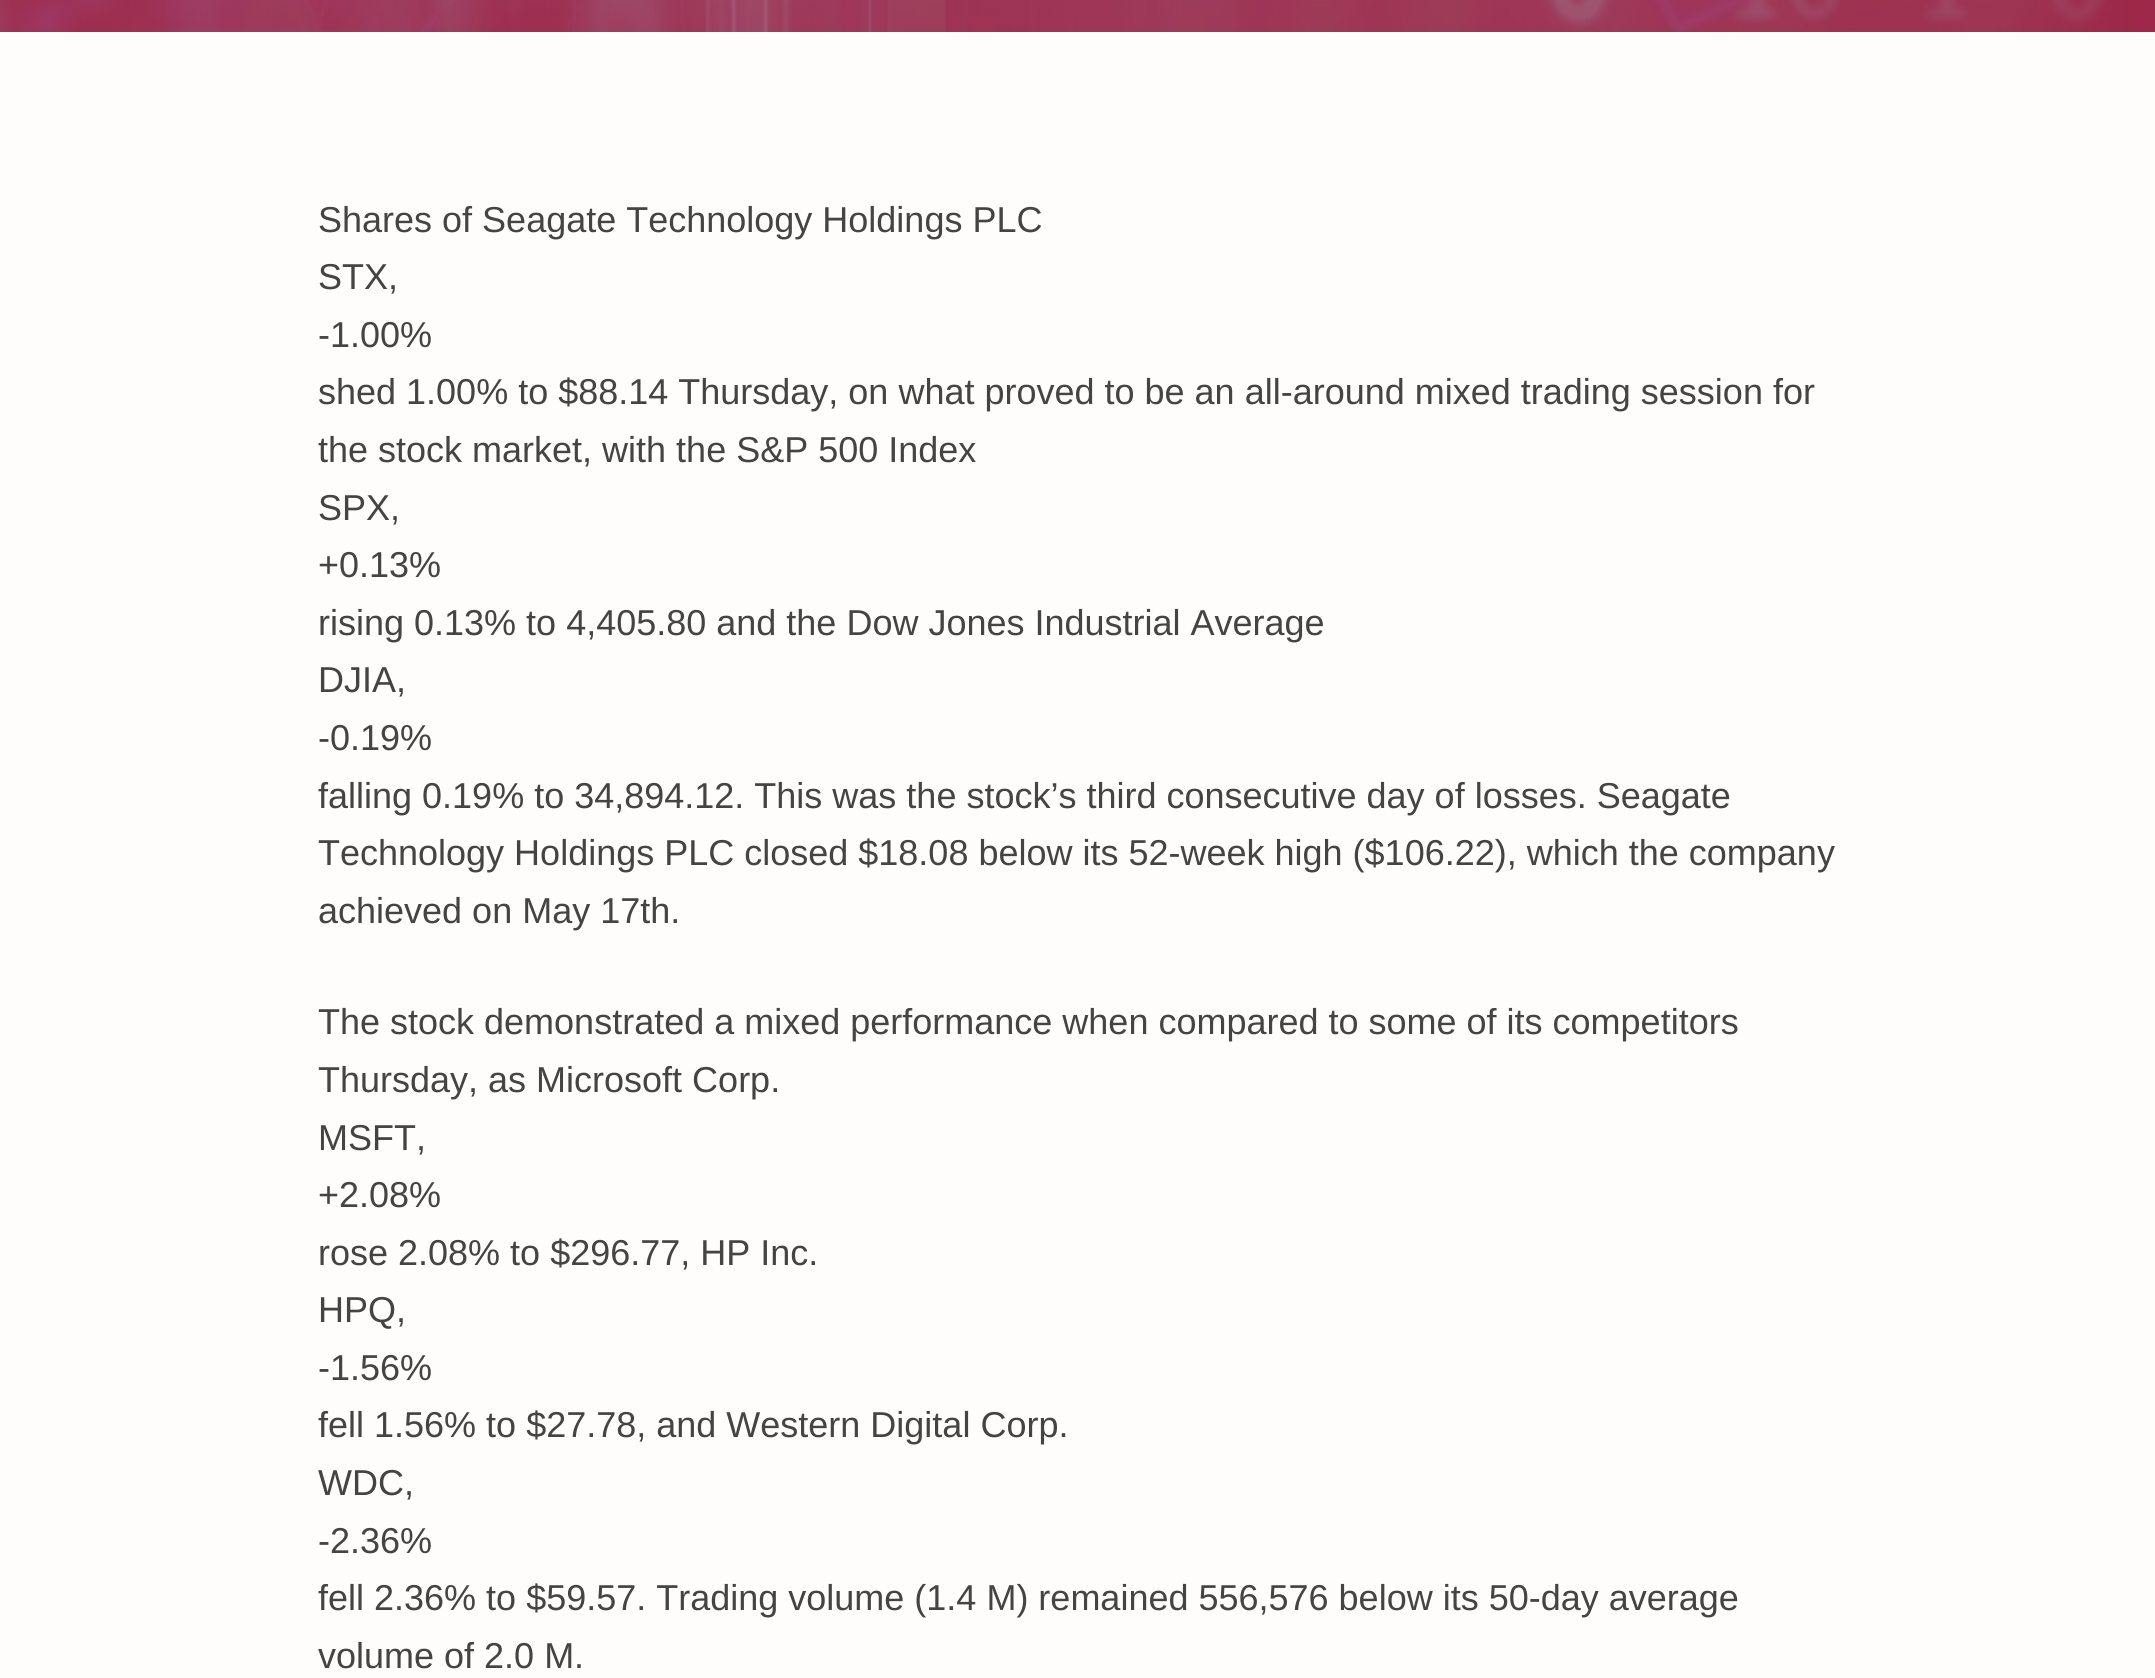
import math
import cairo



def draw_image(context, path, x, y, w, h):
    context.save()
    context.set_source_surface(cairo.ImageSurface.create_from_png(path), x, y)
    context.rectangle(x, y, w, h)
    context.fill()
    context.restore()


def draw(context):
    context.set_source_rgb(1, 252 / 255, 252 / 255)
    context.paint()
    context.set_source_rgb(224 / 255, 49 / 255, 79 / 255)
    context.rectangle(0, 0, 2155, 32)
    context.fill()
    draw_image(context, "images/1.png", 0, 0, 2155, 32)
    context.select_font_face("Liberation Sans")
    context.set_font_size(36)
    context.set_source_rgb(68 / 255, 68 / 255, 68 / 255)
    context.move_to(318, 232)
    context.show_text("Shares of Seagate Technology Holdings PLC")
    context.move_to(318, 289)
    context.show_text("STX,")
    context.move_to(318, 347)
    context.show_text("-1.00%")
    context.move_to(318, 404)
    context.show_text("shed 1.00% to $88.14 Thursday, on what proved to be an all-around mixed trading session for")
    context.move_to(318, 462)
    context.show_text("the stock market, with the S&P 500 Index")
    context.move_to(318, 520)
    context.show_text("SPX,")
    context.move_to(318, 577)
    context.show_text("+0.13%")
    context.move_to(318, 635)
    context.show_text("rising 0.13% to 4,405.80 and the Dow Jones Industrial Average")
    context.move_to(318, 692)
    context.show_text("DJIA,")
    context.move_to(318, 750)
    context.show_text("-0.19%")
    context.move_to(318, 808)
    context.show_text("falling 0.19% to 34,894.12. This was the stock’s third consecutive day of losses. Seagate")
    context.move_to(318, 865)
    context.show_text("Technology Holdings PLC closed $18.08 below its 52-week high ($106.22), which the company")
    context.move_to(318, 923)
    context.show_text("achieved on May 17th.")
    context.move_to(318, 1034)
    context.show_text("The stock demonstrated a mixed performance when compared to some of its competitors")
    context.move_to(318, 1092)
    context.show_text("Thursday, as Microsoft Corp.")
    context.move_to(318, 1150)
    context.show_text("MSFT,")
    context.move_to(318, 1207)
    context.show_text("+2.08%")
    context.move_to(318, 1265)
    context.show_text("rose 2.08% to $296.77, HP Inc.")
    context.move_to(318, 1322)
    context.show_text("HPQ,")
    context.move_to(318, 1380)
    context.show_text("-1.56%")
    context.move_to(318, 1437)
    context.show_text("fell 1.56% to $27.78, and Western Digital Corp.")
    context.move_to(318, 1495)
    context.show_text("WDC,")
    context.move_to(318, 1553)
    context.show_text("-2.36%")
    context.move_to(318, 1610)
    context.show_text("fell 2.36% to $59.57. Trading volume (1.4 M) remained 556,576 below its 50-day average")
    context.move_to(318, 1668)
    context.show_text("volume of 2.0 M.")


surface = cairo.ImageSurface(cairo.Format.RGB24, 2155, 1678)
context = cairo.Context(surface)
options = cairo.FontOptions()
options.set_hint_metrics(cairo.HintMetrics.OFF)
options.set_hint_style(cairo.HintStyle.NONE)
context.set_font_options(options)
context.set_miter_limit(4)
draw(context)
surface.write_to_png("out.png")
